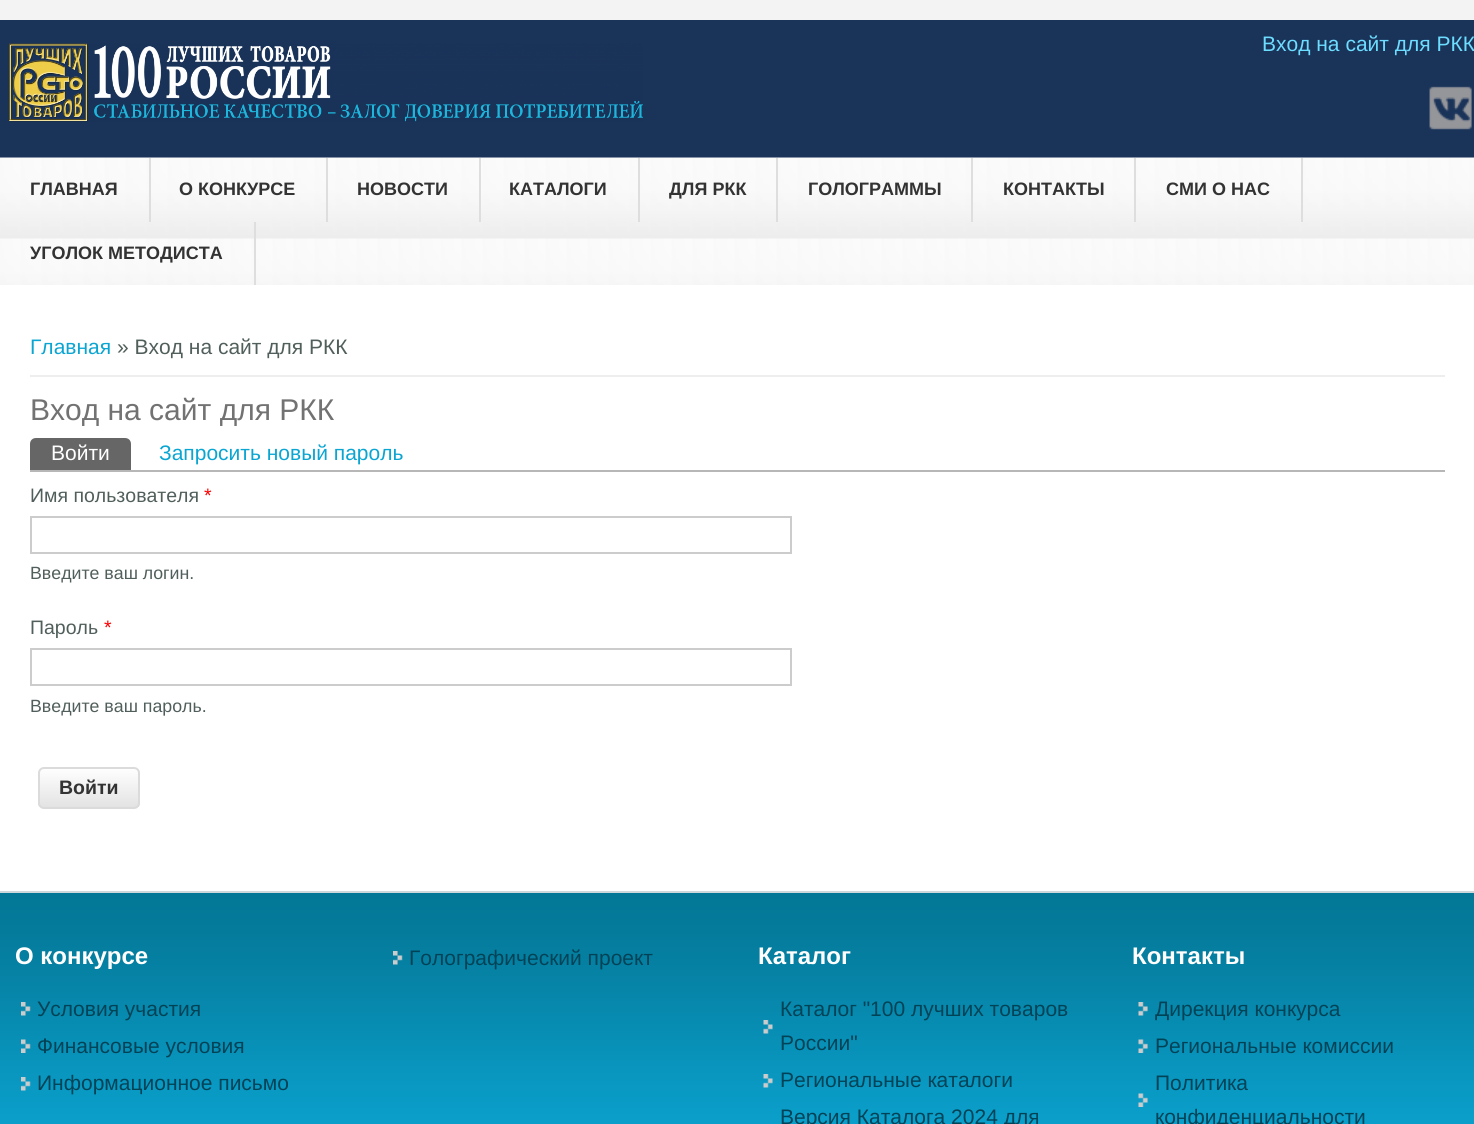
import math
import cairo



def rounded_rect(context, x, y, w, h, r):
    context.new_sub_path()
    for i, (u, v) in enumerate([(x + w - r, y + h - r), (x + r, y + h - r), (x + r, y + r), (x + w - r, y + r)]):
        context.arc(u, v, r, i * math.pi / 2, (i + 1) * math.pi / 2)
    context.close_path()


def draw_image(context, path, x, y, w, h):
    context.save()
    context.set_source_surface(cairo.ImageSurface.create_from_png(path), x, y)
    context.rectangle(x, y, w, h)
    context.fill()
    context.restore()


def draw(context):
    context.set_source_rgb(1, 1, 1)
    context.paint()
    draw_image(context, "images/1.png", 0, 0, 1474, 20)
    context.set_source_rgb(26 / 255, 51 / 255, 89 / 255)
    context.rectangle(0, 20, 1474, 138)
    context.fill()
    draw_image(context, "images/2.png", 9, 43, 634, 79)
    draw_image(context, "images/3.png", 1429, 86, 43, 44)
    draw_image(context, "images/4.png", 0, 157, 1474, 128)
    context.set_source_rgb(222 / 255, 222 / 255, 222 / 255)
    context.rectangle(149, 158, 2, 64)
    context.fill()
    context.rectangle(326, 158, 2, 64)
    context.fill()
    context.rectangle(479, 158, 2, 64)
    context.fill()
    context.rectangle(638, 158, 2, 64)
    context.fill()
    context.rectangle(776, 158, 2, 64)
    context.fill()
    context.rectangle(971, 158, 2, 64)
    context.fill()
    context.rectangle(1134, 158, 2, 64)
    context.fill()
    context.rectangle(1301, 158, 2, 64)
    context.fill()
    context.rectangle(254, 222, 2, 63)
    context.fill()
    context.set_source_rgb(238 / 255, 238 / 255, 238 / 255)
    context.rectangle(30, 375, 1415, 2)
    context.fill()
    context.set_source_rgb(183 / 255, 183 / 255, 183 / 255)
    context.rectangle(30, 470, 1415, 2)
    context.fill()
    context.set_source_rgb(102 / 255, 102 / 255, 102 / 255)
    context.new_path()
    context.move_to(36, 438)
    context.line_to(125, 438)
    context.curve_to(128.5, 438, 131, 440.5, 131, 444)
    context.line_to(131, 470)
    context.line_to(30, 470)
    context.line_to(30, 444)
    context.curve_to(30, 440.5, 32.5, 438, 36, 438)
    context.close_path()
    context.fill()
    context.rectangle(31, 517, 760, 36)
    context.set_source_rgb(204 / 255, 204 / 255, 204 / 255)
    context.stroke()
    context.rectangle(31, 649, 760, 36)
    context.stroke()
    context.save()
    rounded_rect(context, 38, 767, 102, 42, 6)
    context.clip()
    gradient = cairo.LinearGradient(89, 768, 89, 807)
    gradient.add_color_stop_rgba(0, 1, 1, 1, 1)
    gradient.add_color_stop_rgba(1, 227 / 255, 227 / 255, 227 / 255, 1)
    context.set_source(gradient)
    context.rectangle(38, 768, 102, 39)
    context.fill()
    context.restore()
    rounded_rect(context, 39, 768, 100, 40, 5)
    context.set_source_rgb(219 / 255, 219 / 255, 219 / 255)
    context.stroke()
    draw_image(context, "images/5.png", 0, 893, 1474, 231)
    context.set_source_rgb(207 / 255, 215 / 255, 219 / 255)
    context.rectangle(0, 891, 1474, 2)
    context.fill()
    draw_image(context, "images/6.png", 21, 1002, 10, 14)
    draw_image(context, "images/7.png", 21, 1039, 10, 14)
    draw_image(context, "images/8.png", 21, 1077, 10, 14)
    draw_image(context, "images/9.png", 393, 951, 10, 14)
    draw_image(context, "images/10.png", 763, 1020, 10, 14)
    draw_image(context, "images/11.png", 763, 1074, 10, 14)
    draw_image(context, "images/12.png", 1138, 1002, 10, 14)
    draw_image(context, "images/13.png", 1138, 1039, 10, 14)
    draw_image(context, "images/14.png", 1138, 1093, 10, 14)
    context.select_font_face("Liberation Sans")
    context.set_font_size(21)
    context.set_source_rgb(108 / 255, 220 / 255, 1)
    context.move_to(1262, 51)
    context.show_text("Вход на сайт для РКК")
    context.select_font_face("Liberation Sans", cairo.FontSlant.NORMAL, cairo.FontWeight.BOLD)
    context.set_font_size(18)
    context.set_source_rgb(51 / 255, 51 / 255, 51 / 255)
    context.move_to(30, 195)
    context.show_text("ГЛАВНАЯ")
    context.move_to(179, 195)
    context.show_text("О КОНКУРСЕ")
    context.move_to(357, 195)
    context.show_text("НОВОСТИ")
    context.move_to(509, 195)
    context.show_text("КАТАЛОГИ")
    context.move_to(669, 195)
    context.show_text("ДЛЯ РКК")
    context.move_to(808, 195)
    context.show_text("ГОЛОГРАММЫ")
    context.move_to(1003, 195)
    context.show_text("КОНТАКТЫ")
    context.move_to(1166, 195)
    context.show_text("СМИ О НАС")
    context.move_to(30, 259)
    context.show_text("УГОЛОК МЕТОДИСТА")
    context.select_font_face("Liberation Sans")
    context.set_font_size(21)
    context.set_source_rgb(11 / 255, 165 / 255, 210 / 255)
    context.move_to(30, 354)
    context.show_text("Главная")
    context.set_source_rgb(81 / 255, 95 / 255, 92 / 255)
    context.move_to(117, 354)
    context.show_text("» Вход на сайт для РКК")
    context.set_font_size(30)
    context.set_source_rgb(114 / 255, 114 / 255, 114 / 255)
    context.move_to(30, 420)
    context.show_text("Вход на сайт для РКК")
    context.set_font_size(21)
    context.set_source_rgb(1, 1, 1)
    context.move_to(51, 460)
    context.show_text("Войти")
    context.set_source_rgb(11 / 255, 165 / 255, 210 / 255)
    context.move_to(159, 460)
    context.show_text("Запросить новый пароль")
    context.set_font_size(19.5)
    context.set_source_rgb(81 / 255, 95 / 255, 92 / 255)
    context.move_to(30, 502)
    context.show_text("Имя пользователя")
    context.set_source_rgb(1, 0, 0)
    context.move_to(204, 502)
    context.show_text("*")
    context.set_font_size(17.75)
    context.set_source_rgb(81 / 255, 95 / 255, 92 / 255)
    context.move_to(30, 579)
    context.show_text("Введите ваш логин.")
    context.set_font_size(19.5)
    context.move_to(30, 634)
    context.show_text("Пароль")
    context.set_source_rgb(1, 0, 0)
    context.move_to(104, 634)
    context.show_text("*")
    context.set_font_size(17.75)
    context.set_source_rgb(81 / 255, 95 / 255, 92 / 255)
    context.move_to(30, 712)
    context.show_text("Введите ваш пароль.")
    context.select_font_face("Liberation Sans", cairo.FontSlant.NORMAL, cairo.FontWeight.BOLD)
    context.set_font_size(19.5)
    context.set_source_rgb(51 / 255, 51 / 255, 51 / 255)
    context.move_to(59, 794)
    context.show_text("Войти")
    context.set_font_size(24)
    context.set_source_rgb(1, 1, 1)
    context.move_to(15, 964)
    context.show_text("О конкурсе")
    context.select_font_face("Liberation Sans")
    context.set_font_size(21)
    context.set_source_rgb(0, 67 / 255, 87 / 255)
    context.move_to(37, 1016)
    context.show_text("Условия участия")
    context.move_to(37, 1053)
    context.show_text("Финансовые условия")
    context.move_to(37, 1090)
    context.show_text("Информационное письмо")
    context.move_to(409, 965)
    context.show_text("Голографический проект")
    context.select_font_face("Liberation Sans", cairo.FontSlant.NORMAL, cairo.FontWeight.BOLD)
    context.set_font_size(24)
    context.set_source_rgb(1, 1, 1)
    context.move_to(758, 964)
    context.show_text("Каталог")
    context.select_font_face("Liberation Sans")
    context.set_font_size(21)
    context.set_source_rgb(0, 67 / 255, 87 / 255)
    context.move_to(780, 1016)
    context.show_text("Каталог \"100 лучших товаров")
    context.move_to(780, 1050)
    context.show_text("России\"")
    context.move_to(780, 1087)
    context.show_text("Региональные каталоги")
    context.move_to(780, 1124)
    context.show_text("Версия Каталога 2024 для")
    context.select_font_face("Liberation Sans", cairo.FontSlant.NORMAL, cairo.FontWeight.BOLD)
    context.set_font_size(24)
    context.set_source_rgb(1, 1, 1)
    context.move_to(1132, 964)
    context.show_text("Контакты")
    context.select_font_face("Liberation Sans")
    context.set_font_size(21)
    context.set_source_rgb(0, 67 / 255, 87 / 255)
    context.move_to(1155, 1016)
    context.show_text("Дирекция конкурса")
    context.move_to(1155, 1053)
    context.show_text("Региональные комиссии")
    context.move_to(1155, 1090)
    context.show_text("Политика")
    context.move_to(1155, 1124)
    context.show_text("конфиденциальности")


surface = cairo.ImageSurface(cairo.Format.RGB24, 1474, 1124)
context = cairo.Context(surface)
options = cairo.FontOptions()
options.set_hint_metrics(cairo.HintMetrics.OFF)
options.set_hint_style(cairo.HintStyle.NONE)
context.set_font_options(options)
context.set_miter_limit(4)
draw(context)
surface.write_to_png("out.png")
